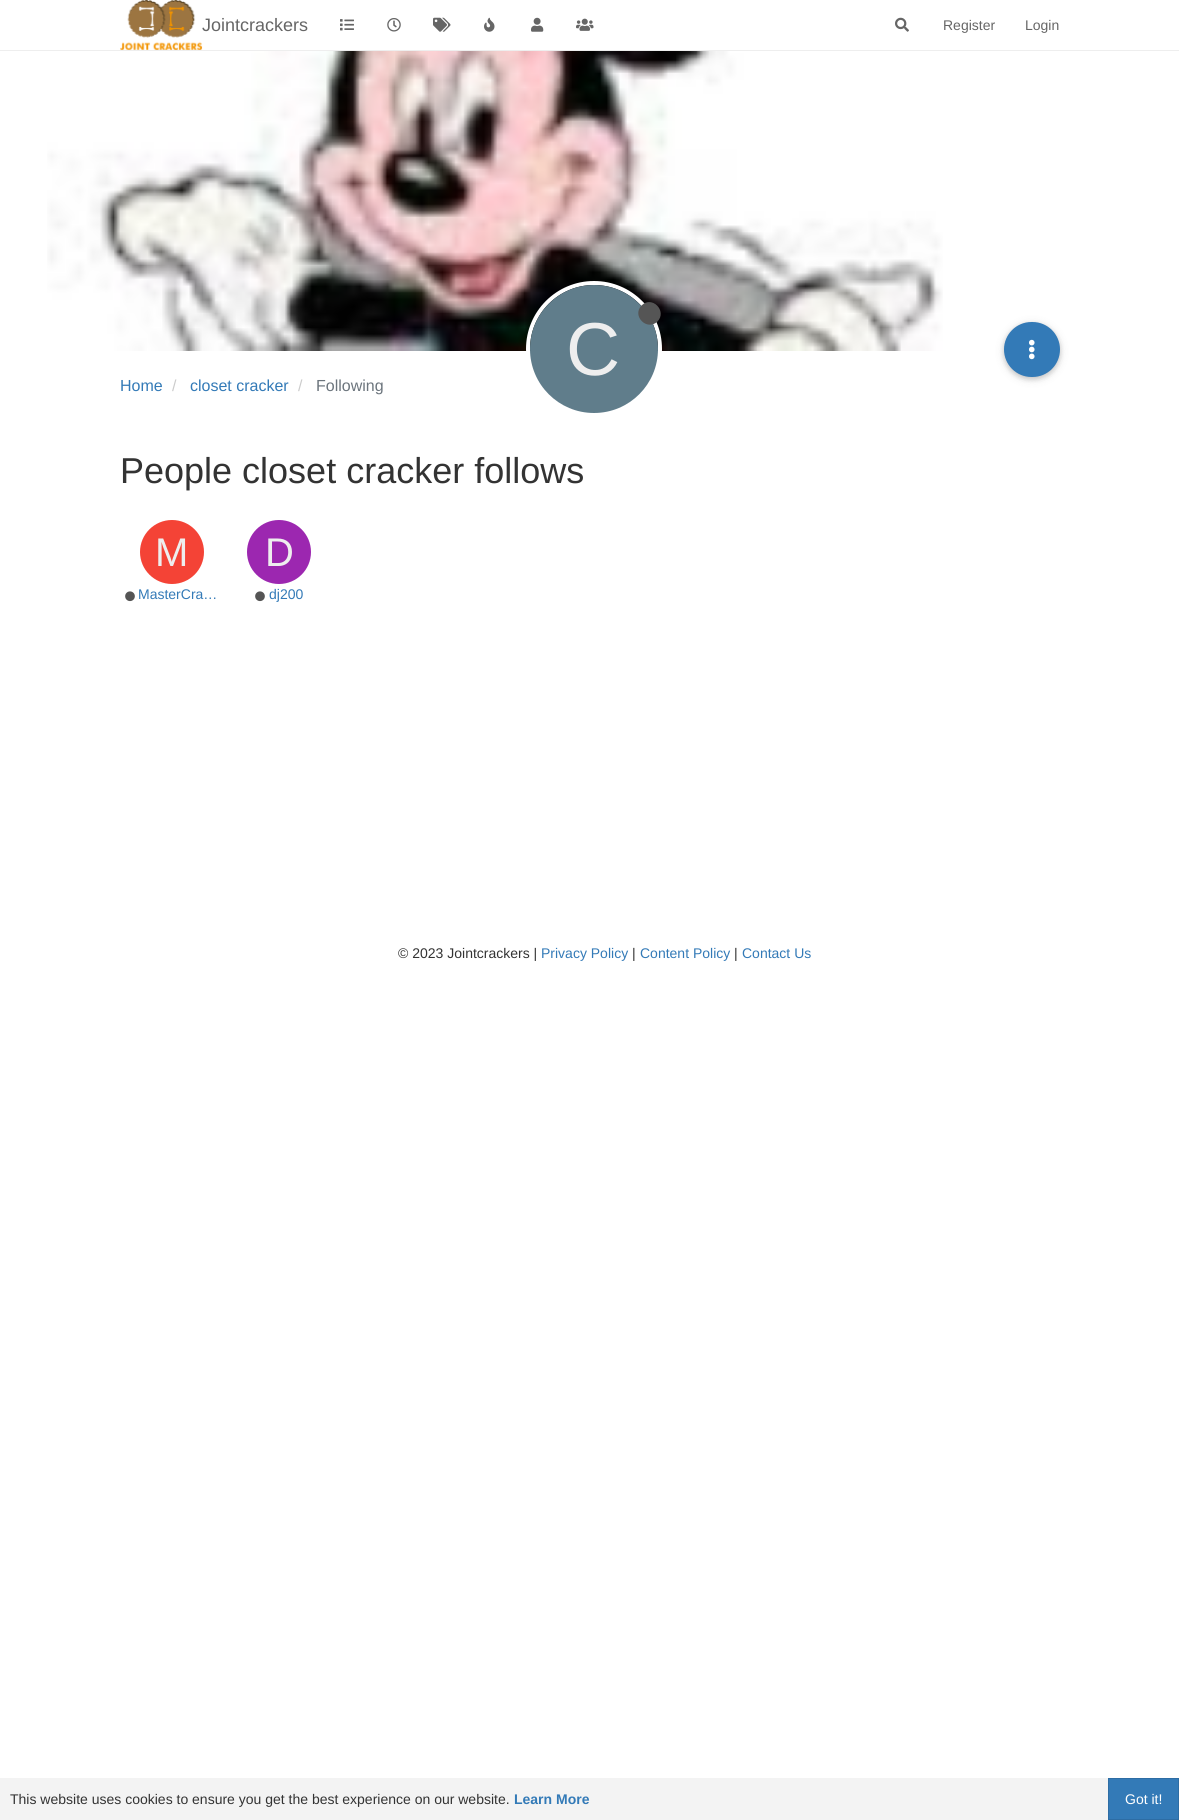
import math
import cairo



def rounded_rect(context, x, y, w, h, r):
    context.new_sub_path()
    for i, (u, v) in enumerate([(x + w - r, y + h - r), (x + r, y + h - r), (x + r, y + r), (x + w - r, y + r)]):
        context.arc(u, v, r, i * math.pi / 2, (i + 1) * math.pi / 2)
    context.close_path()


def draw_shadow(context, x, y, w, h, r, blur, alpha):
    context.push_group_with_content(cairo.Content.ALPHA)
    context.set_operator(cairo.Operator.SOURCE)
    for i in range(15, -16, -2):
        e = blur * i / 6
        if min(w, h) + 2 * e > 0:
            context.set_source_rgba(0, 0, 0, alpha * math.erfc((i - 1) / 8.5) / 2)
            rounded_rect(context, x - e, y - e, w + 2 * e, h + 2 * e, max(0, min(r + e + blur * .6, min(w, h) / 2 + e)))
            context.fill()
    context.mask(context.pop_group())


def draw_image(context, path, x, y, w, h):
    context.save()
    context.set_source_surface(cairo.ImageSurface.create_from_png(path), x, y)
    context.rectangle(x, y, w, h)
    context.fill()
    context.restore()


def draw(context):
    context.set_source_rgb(1, 1, 1)
    context.paint()
    context.set_source_rgb(238 / 255, 238 / 255, 238 / 255)
    context.rectangle(0, 50, 1179, 1)
    context.fill()
    draw_image(context, "images/1.png", 120, 0, 83, 50)
    draw_image(context, "images/2.png", 340, 19, 14, 12)
    draw_image(context, "images/3.png", 387, 18, 14, 14)
    draw_image(context, "images/4.png", 433, 17, 18, 15)
    draw_image(context, "images/5.png", 484, 17, 11, 15)
    draw_image(context, "images/6.png", 531, 17, 13, 15)
    draw_image(context, "images/7.png", 576, 18, 18, 13)
    draw_image(context, "images/8.png", 895, 17, 14, 15)
    draw_image(context, "images/9.png", 47, 51, 896, 300)
    context.arc(594, 349, 66, 0, 2 * math.pi)
    context.set_source_rgb(1, 1, 1)
    context.set_line_width(4)
    context.stroke()
    context.set_source_rgb(96 / 255, 125 / 255, 139 / 255)
    context.arc(594, 349, 64, 0, 2 * math.pi)
    context.fill()
    context.set_source_rgb(85 / 255, 85 / 255, 85 / 255)
    context.new_path()
    context.move_to(641.5, 305.5)
    context.curve_to(652, 295, 667.5, 311, 657.5, 321.5)
    context.curve_to(647, 331.5, 631.5, 316, 641.5, 305.5)
    context.close_path()
    context.fill()
    context.set_source_rgb(0, 0, 0)
    draw_shadow(context, 1004, 324, 56, 55, 27.5, 5, 0.12)
    draw_shadow(context, 1004, 324, 56, 55, 27.5, 2.5, 0.16)
    context.set_source_rgb(51 / 255, 122 / 255, 183 / 255)
    rounded_rect(context, 1004, 322, 56, 55, 27.5)
    context.fill()
    draw_image(context, "images/10.png", 1029, 339, 6, 21)
    context.set_source_rgb(244 / 255, 67 / 255, 54 / 255)
    context.arc(172, 552, 32, 0, 2 * math.pi)
    context.fill()
    draw_image(context, "images/11.png", 125, 591, 10, 11)
    context.set_source_rgb(156 / 255, 39 / 255, 176 / 255)
    context.arc(279, 552, 32, 0, 2 * math.pi)
    context.fill()
    draw_image(context, "images/11.png", 255, 591, 10, 11)
    context.set_source_rgb(243 / 255, 243 / 255, 243 / 255)
    context.rectangle(0, 1778, 1108, 42)
    context.fill()
    context.set_source_rgb(51 / 255, 122 / 255, 183 / 255)
    context.rectangle(1108.5, 1778.5, 70, 41)
    context.fill_preserve()
    context.set_source_rgb(46 / 255, 109 / 255, 164 / 255)
    context.set_line_width(1)
    context.stroke()
    context.select_font_face("Liberation Sans")
    context.set_font_size(18)
    context.set_source_rgb(102 / 255, 102 / 255, 102 / 255)
    context.move_to(202, 31)
    context.show_text("Jointcrackers")
    context.set_font_size(14)
    context.move_to(943, 30)
    context.show_text("Register")
    context.move_to(1025, 30)
    context.show_text("Login")
    context.set_font_size(75)
    context.set_source_rgb(238 / 255, 238 / 255, 238 / 255)
    context.move_to(566, 375)
    context.show_text("C")
    context.set_font_size(16)
    context.set_source_rgb(51 / 255, 122 / 255, 183 / 255)
    context.move_to(120, 391)
    context.show_text("Home")
    context.set_source_rgb(204 / 255, 204 / 255, 204 / 255)
    context.move_to(172, 391)
    context.show_text("/")
    context.set_source_rgb(51 / 255, 122 / 255, 183 / 255)
    context.move_to(190, 391)
    context.show_text("closet cracker")
    context.set_source_rgb(204 / 255, 204 / 255, 204 / 255)
    context.move_to(298, 391)
    context.show_text("/")
    context.set_source_rgb(108 / 255, 117 / 255, 125 / 255)
    context.move_to(316, 391)
    context.show_text("Following")
    context.set_font_size(36)
    context.set_source_rgb(51 / 255, 51 / 255, 51 / 255)
    context.move_to(120, 483)
    context.show_text("People closet cracker follows")
    context.set_font_size(40)
    context.set_source_rgb(238 / 255, 238 / 255, 238 / 255)
    context.move_to(155, 566)
    context.show_text("M")
    context.set_font_size(14)
    context.set_source_rgb(51 / 255, 122 / 255, 183 / 255)
    context.move_to(138, 599)
    context.show_text("MasterCra…")
    context.set_font_size(40)
    context.set_source_rgb(238 / 255, 238 / 255, 238 / 255)
    context.move_to(265, 566)
    context.show_text("D")
    context.set_font_size(14)
    context.set_source_rgb(51 / 255, 122 / 255, 183 / 255)
    context.move_to(269, 599)
    context.show_text("dj200")
    context.set_source_rgb(51 / 255, 51 / 255, 51 / 255)
    context.move_to(398, 958)
    context.show_text("© 2023 Jointcrackers |")
    context.set_source_rgb(51 / 255, 122 / 255, 183 / 255)
    context.move_to(541, 958)
    context.show_text("Privacy Policy")
    context.set_source_rgb(51 / 255, 51 / 255, 51 / 255)
    context.move_to(632, 958)
    context.show_text("|")
    context.set_source_rgb(51 / 255, 122 / 255, 183 / 255)
    context.move_to(640, 958)
    context.show_text("Content Policy")
    context.set_source_rgb(51 / 255, 51 / 255, 51 / 255)
    context.move_to(734, 958)
    context.show_text("|")
    context.set_source_rgb(51 / 255, 122 / 255, 183 / 255)
    context.move_to(742, 958)
    context.show_text("Contact Us")
    context.set_source_rgb(51 / 255, 51 / 255, 51 / 255)
    context.move_to(10, 1804)
    context.show_text("This website uses cookies to ensure you get the best experience on our website.")
    context.select_font_face("Liberation Sans", cairo.FontSlant.NORMAL, cairo.FontWeight.BOLD)
    context.set_source_rgb(51 / 255, 122 / 255, 183 / 255)
    context.move_to(514, 1804)
    context.show_text("Learn More")
    context.select_font_face("Liberation Sans")
    context.set_source_rgb(1, 1, 1)
    context.move_to(1125, 1804)
    context.show_text("Got it!")


surface = cairo.ImageSurface(cairo.Format.RGB24, 1179, 1820)
context = cairo.Context(surface)
options = cairo.FontOptions()
options.set_hint_metrics(cairo.HintMetrics.OFF)
options.set_hint_style(cairo.HintStyle.NONE)
context.set_font_options(options)
context.set_miter_limit(4)
draw(context)
surface.write_to_png("out.png")
